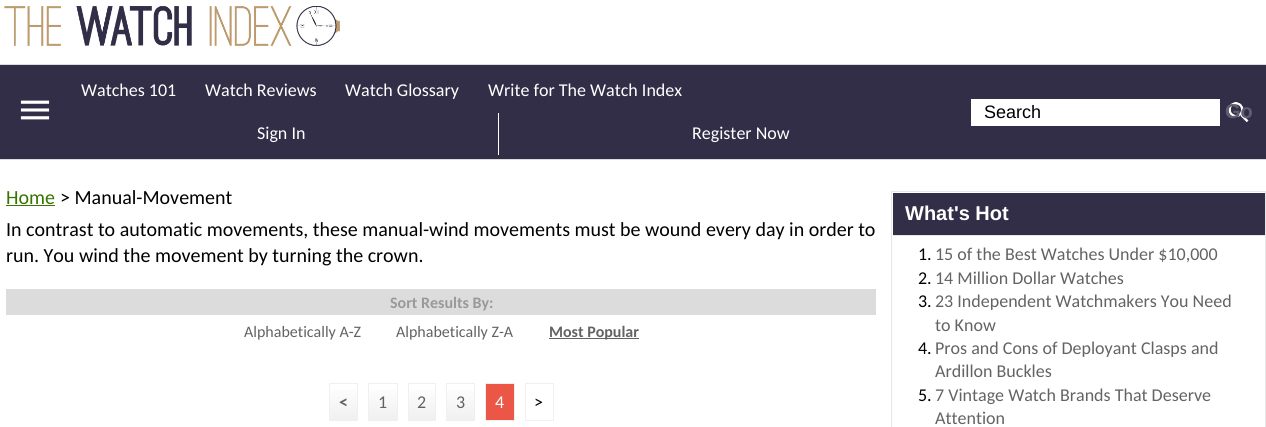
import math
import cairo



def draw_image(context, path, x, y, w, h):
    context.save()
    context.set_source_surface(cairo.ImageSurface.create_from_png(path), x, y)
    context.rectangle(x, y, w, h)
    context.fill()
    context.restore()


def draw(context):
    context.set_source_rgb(1, 1, 1)
    context.paint()
    draw_image(context, "images/1.png", 4, 6, 336, 41)
    context.set_source_rgb(50 / 255, 46 / 255, 71 / 255)
    context.rectangle(0, 65, 1266, 94)
    context.fill()
    context.set_source_rgb(221 / 255, 221 / 255, 221 / 255)
    context.rectangle(0, 64, 1266, 1)
    context.fill()
    context.rectangle(0, 159, 1266, 1)
    context.fill()
    draw_image(context, "images/2.png", 20, 100, 30, 20)
    context.set_source_rgb(1, 1, 1)
    context.rectangle(498, 113, 1, 42)
    context.fill()
    context.rectangle(971, 99, 249, 27)
    context.fill()
    draw_image(context, "images/3.png", 1228, 102, 21, 21)
    context.set_source_rgb(55 / 255, 116 / 255, 0)
    context.rectangle(6, 205, 49, 1)
    context.fill()
    context.set_source_rgb(220 / 255, 220 / 255, 220 / 255)
    context.rectangle(6, 289, 870, 26)
    context.fill()
    context.set_source_rgb(99 / 255, 99 / 255, 99 / 255)
    context.rectangle(549, 338, 90, 1)
    context.fill()
    gradient = cairo.LinearGradient(343, 384, 343, 420)
    gradient.add_color_stop_rgba(0, 1, 1, 1, 1)
    gradient.add_color_stop_rgba(1, 240 / 255, 240 / 255, 240 / 255, 1)
    context.set_source(gradient)
    context.rectangle(330, 390, 27, 30)
    context.fill()
    context.rectangle(329.5, 383.5, 28, 37)
    context.set_source_rgb(240 / 255, 240 / 255, 240 / 255)
    context.set_line_width(1)
    context.stroke()
    gradient = cairo.LinearGradient(383, 384, 383, 420)
    gradient.add_color_stop_rgba(0, 1, 1, 1, 1)
    gradient.add_color_stop_rgba(1, 240 / 255, 240 / 255, 240 / 255, 1)
    context.set_source(gradient)
    context.rectangle(369, 390, 28, 30)
    context.fill()
    context.rectangle(368.5, 383.5, 29, 37)
    context.set_source_rgb(240 / 255, 240 / 255, 240 / 255)
    context.stroke()
    gradient = cairo.LinearGradient(422, 384, 422, 420)
    gradient.add_color_stop_rgba(0, 1, 1, 1, 1)
    gradient.add_color_stop_rgba(1, 240 / 255, 240 / 255, 240 / 255, 1)
    context.set_source(gradient)
    context.rectangle(409, 390, 26, 30)
    context.fill()
    context.rectangle(408.5, 383.5, 27, 37)
    context.set_source_rgb(240 / 255, 240 / 255, 240 / 255)
    context.stroke()
    gradient = cairo.LinearGradient(461, 384, 461, 420)
    gradient.add_color_stop_rgba(0, 1, 1, 1, 1)
    gradient.add_color_stop_rgba(1, 240 / 255, 240 / 255, 240 / 255, 1)
    context.set_source(gradient)
    context.rectangle(447, 390, 27, 30)
    context.fill()
    context.rectangle(446.5, 383.5, 28, 37)
    context.set_source_rgb(240 / 255, 240 / 255, 240 / 255)
    context.stroke()
    context.set_source_rgb(236 / 255, 86 / 255, 71 / 255)
    context.rectangle(485.5, 383.5, 29, 37)
    context.fill_preserve()
    context.set_source_rgb(240 / 255, 240 / 255, 240 / 255)
    context.stroke()
    context.rectangle(525.5, 383.5, 28, 37)
    context.stroke()
    context.rectangle(891.5, 191.5, 374, 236)
    context.set_source_rgb(231 / 255, 231 / 255, 231 / 255)
    context.stroke()
    context.set_source_rgb(50 / 255, 46 / 255, 71 / 255)
    context.rectangle(893, 193, 372, 42)
    context.fill()
    context.set_source_rgb(231 / 255, 231 / 255, 231 / 255)
    context.rectangle(893, 235, 372, 1)
    context.fill()
    context.select_font_face("Carlito")
    context.set_font_size(18)
    context.set_source_rgb(1, 1, 1)
    context.move_to(81, 96)
    context.show_text("Watches 101")
    context.move_to(205, 96)
    context.show_text("Watch Reviews")
    context.move_to(345, 96)
    context.show_text("Watch Glossary")
    context.move_to(488, 96)
    context.show_text("Write for The Watch Index")
    context.move_to(257, 139)
    context.show_text("Sign In")
    context.move_to(692, 139)
    context.show_text("Register Now")
    context.select_font_face("Liberation Sans")
    context.set_source_rgb(0, 0, 0)
    context.move_to(984, 118)
    context.show_text("Search")
    context.select_font_face("Liberation Sans", cairo.FontSlant.NORMAL, cairo.FontWeight.BOLD)
    context.set_font_size(20)
    context.set_source_rgb(96 / 255, 93 / 255, 112 / 255)
    context.move_to(1225, 118)
    context.show_text("Go")
    context.select_font_face("Carlito")
    context.set_source_rgb(55 / 255, 116 / 255, 0)
    context.move_to(6, 204)
    context.show_text("Home")
    context.set_source_rgb(0, 0, 0)
    context.move_to(60, 204)
    context.show_text("> Manual-Movement")
    context.move_to(6, 236)
    context.show_text("In contrast to automatic movements, these manual-wind movements must be wound every day in order to")
    context.move_to(6, 262)
    context.show_text("run. You wind the movement by turning the crown.")
    context.select_font_face("Carlito", cairo.FontSlant.NORMAL, cairo.FontWeight.BOLD)
    context.set_font_size(16)
    context.set_source_rgb(153 / 255, 153 / 255, 153 / 255)
    context.move_to(390, 308)
    context.show_text("Sort Results By:")
    context.select_font_face("Carlito")
    context.set_source_rgb(99 / 255, 99 / 255, 99 / 255)
    context.move_to(244, 337)
    context.show_text("Alphabetically A-Z")
    context.move_to(396, 337)
    context.show_text("Alphabetically Z-A")
    context.select_font_face("Carlito", cairo.FontSlant.NORMAL, cairo.FontWeight.BOLD)
    context.move_to(549, 337)
    context.show_text("Most Popular")
    context.set_font_size(18)
    context.move_to(339, 408)
    context.show_text("<")
    context.select_font_face("Carlito")
    context.move_to(378, 408)
    context.show_text("1")
    context.move_to(417, 408)
    context.show_text("2")
    context.move_to(456, 408)
    context.show_text("3")
    context.set_source_rgb(1, 1, 1)
    context.move_to(495, 408)
    context.show_text("4")
    context.set_source_rgb(0, 0, 0)
    context.move_to(534, 408)
    context.show_text(">")
    context.select_font_face("Liberation Sans", cairo.FontSlant.NORMAL, cairo.FontWeight.BOLD)
    context.set_font_size(20)
    context.set_source_rgb(1, 1, 1)
    context.move_to(905, 220)
    context.show_text("What's Hot")
    context.select_font_face("Carlito")
    context.set_font_size(18)
    context.set_source_rgb(0, 0, 0)
    context.move_to(918, 260)
    context.show_text("1.")
    context.set_source_rgb(99 / 255, 99 / 255, 99 / 255)
    context.move_to(935, 260)
    context.show_text("15 of the Best Watches Under $10,000")
    context.set_source_rgb(0, 0, 0)
    context.move_to(918, 284)
    context.show_text("2.")
    context.set_source_rgb(99 / 255, 99 / 255, 99 / 255)
    context.move_to(935, 284)
    context.show_text("14 Million Dollar Watches")
    context.set_source_rgb(0, 0, 0)
    context.move_to(918, 307)
    context.show_text("3.")
    context.set_source_rgb(99 / 255, 99 / 255, 99 / 255)
    context.move_to(935, 307)
    context.show_text("23 Independent Watchmakers You Need")
    context.move_to(935, 331)
    context.show_text("to Know")
    context.set_source_rgb(0, 0, 0)
    context.move_to(918, 354)
    context.show_text("4.")
    context.set_source_rgb(99 / 255, 99 / 255, 99 / 255)
    context.move_to(935, 354)
    context.show_text("Pros and Cons of Deployant Clasps and")
    context.move_to(935, 377)
    context.show_text("Ardillon Buckles")
    context.set_source_rgb(0, 0, 0)
    context.move_to(918, 401)
    context.show_text("5.")
    context.set_source_rgb(99 / 255, 99 / 255, 99 / 255)
    context.move_to(935, 401)
    context.show_text("7 Vintage Watch Brands That Deserve")
    context.move_to(935, 424)
    context.show_text("Attention")


surface = cairo.ImageSurface(cairo.Format.RGB24, 1266, 427)
context = cairo.Context(surface)
options = cairo.FontOptions()
options.set_hint_metrics(cairo.HintMetrics.OFF)
options.set_hint_style(cairo.HintStyle.NONE)
context.set_font_options(options)
context.set_miter_limit(4)
draw(context)
surface.write_to_png("out.png")
